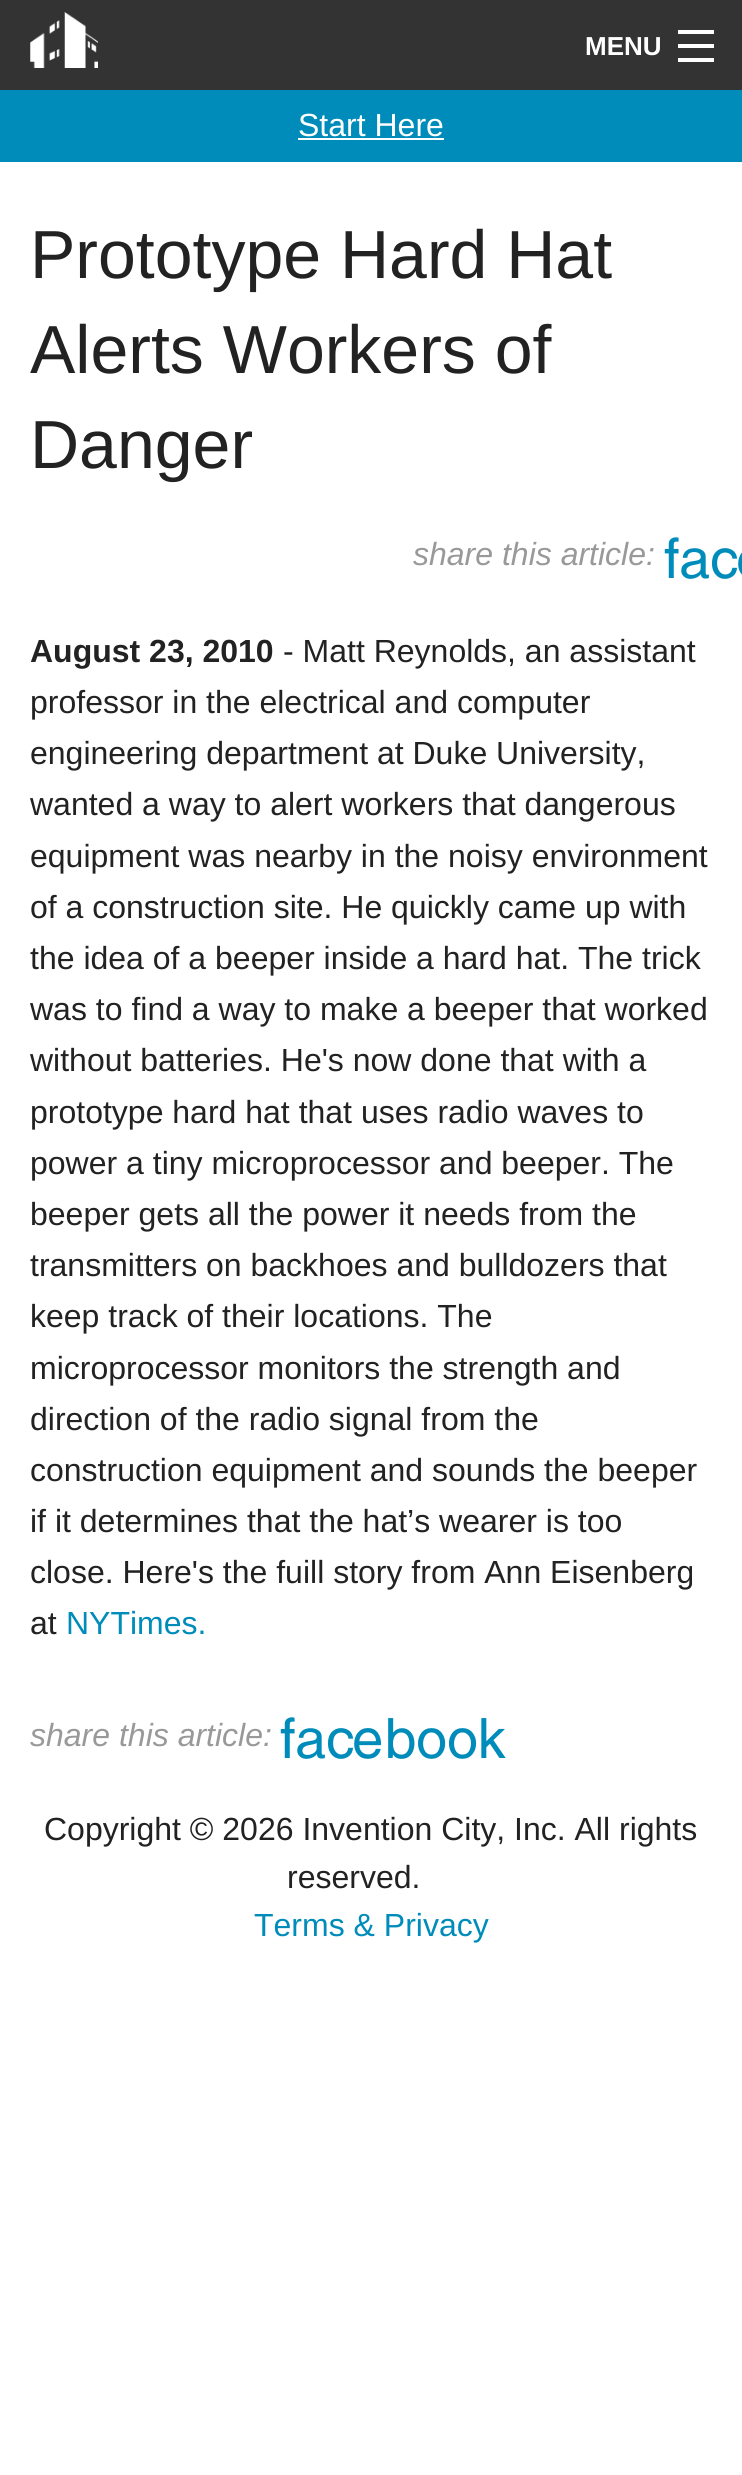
import math
import cairo



def draw_image(context, path, x, y, w, h):
    context.save()
    context.set_source_surface(cairo.ImageSurface.create_from_png(path), x, y)
    context.rectangle(x, y, w, h)
    context.fill()
    context.restore()


def draw(context):
    context.set_source_rgb(1, 1, 1)
    context.paint()
    context.set_source_rgb(51 / 255, 51 / 255, 51 / 255)
    context.rectangle(0, 0, 742, 90)
    context.fill()
    draw_image(context, "images/1.png", 30, 12, 68, 56)
    context.set_source_rgb(1, 1, 1)
    context.rectangle(678, 58, 36, 4)
    context.fill()
    context.rectangle(678, 44, 36, 4)
    context.fill()
    context.rectangle(678, 30, 36, 4)
    context.fill()
    context.set_source_rgb(0, 140 / 255, 186 / 255)
    context.rectangle(0, 90, 742, 72)
    context.fill()
    context.set_source_rgb(1, 1, 1)
    context.rectangle(298, 138, 146, 2)
    context.fill()
    draw_image(context, "images/2.png", 664, 537, 78, 42)
    draw_image(context, "images/3.png", 280, 1717, 226, 42)
    context.select_font_face("Liberation Sans", cairo.FontSlant.NORMAL, cairo.FontWeight.BOLD)
    context.set_font_size(26)
    context.move_to(585, 55)
    context.show_text("MENU")
    context.select_font_face("Liberation Sans")
    context.set_font_size(32)
    context.move_to(298, 136)
    context.show_text("Start Here")
    context.set_font_size(68)
    context.set_source_rgb(34 / 255, 34 / 255, 34 / 255)
    context.move_to(30, 278)
    context.show_text("Prototype Hard Hat")
    context.move_to(30, 373)
    context.show_text("Alerts Workers of")
    context.move_to(30, 468)
    context.show_text("Danger")
    context.select_font_face("Liberation Sans", cairo.FontSlant.ITALIC)
    context.set_font_size(32)
    context.set_source_rgb(153 / 255, 153 / 255, 153 / 255)
    context.move_to(413, 565)
    context.show_text("share this article:")
    context.select_font_face("Liberation Sans", cairo.FontSlant.NORMAL, cairo.FontWeight.BOLD)
    context.set_source_rgb(34 / 255, 34 / 255, 34 / 255)
    context.move_to(30, 662)
    context.show_text("August 23, 2010")
    context.select_font_face("Liberation Sans")
    context.move_to(283, 662)
    context.show_text("- Matt Reynolds, an assistant")
    context.move_to(30, 713)
    context.show_text("professor in the electrical and computer")
    context.move_to(30, 764)
    context.show_text("engineering department at Duke University,")
    context.move_to(30, 815)
    context.show_text("wanted a way to alert workers that dangerous")
    context.move_to(30, 867)
    context.show_text("equipment was nearby in the noisy environment")
    context.move_to(30, 918)
    context.show_text("of a construction site. He quickly came up with")
    context.move_to(30, 969)
    context.show_text("the idea of a beeper inside a hard hat. The trick")
    context.move_to(30, 1020)
    context.show_text("was to find a way to make a beeper that worked")
    context.move_to(30, 1071)
    context.show_text("without batteries. He's now done that with a")
    context.move_to(30, 1123)
    context.show_text("prototype hard hat that uses radio waves to")
    context.move_to(30, 1174)
    context.show_text("power a tiny microprocessor and beeper. The")
    context.move_to(30, 1225)
    context.show_text("beeper gets all the power it needs from the")
    context.move_to(30, 1276)
    context.show_text("transmitters on backhoes and bulldozers that")
    context.move_to(30, 1327)
    context.show_text("keep track of their locations. The")
    context.move_to(30, 1379)
    context.show_text("microprocessor monitors the strength and")
    context.move_to(30, 1430)
    context.show_text("direction of the radio signal from the")
    context.move_to(30, 1481)
    context.show_text("construction equipment and sounds the beeper")
    context.move_to(30, 1532)
    context.show_text("if it determines that the hat’s wearer is too")
    context.move_to(30, 1583)
    context.show_text("close. Here's the fuill story from Ann Eisenberg")
    context.move_to(30, 1634)
    context.show_text("at")
    context.set_source_rgb(0, 140 / 255, 186 / 255)
    context.move_to(66, 1634)
    context.show_text("NYTimes.")
    context.select_font_face("Liberation Sans", cairo.FontSlant.ITALIC)
    context.set_source_rgb(153 / 255, 153 / 255, 153 / 255)
    context.move_to(30, 1746)
    context.show_text("share this article:")
    context.select_font_face("Liberation Sans")
    context.set_source_rgb(34 / 255, 34 / 255, 34 / 255)
    context.move_to(44, 1840)
    context.show_text("Copyright © 2026 Invention City, Inc. All rights")
    context.move_to(287, 1888)
    context.show_text("reserved.")
    context.set_source_rgb(0, 140 / 255, 186 / 255)
    context.move_to(254, 1936)
    context.show_text("Terms & Privacy")


surface = cairo.ImageSurface(cairo.Format.RGB24, 742, 2475)
context = cairo.Context(surface)
options = cairo.FontOptions()
options.set_hint_metrics(cairo.HintMetrics.OFF)
options.set_hint_style(cairo.HintStyle.NONE)
context.set_font_options(options)
context.set_miter_limit(4)
draw(context)
surface.write_to_png("out.png")
